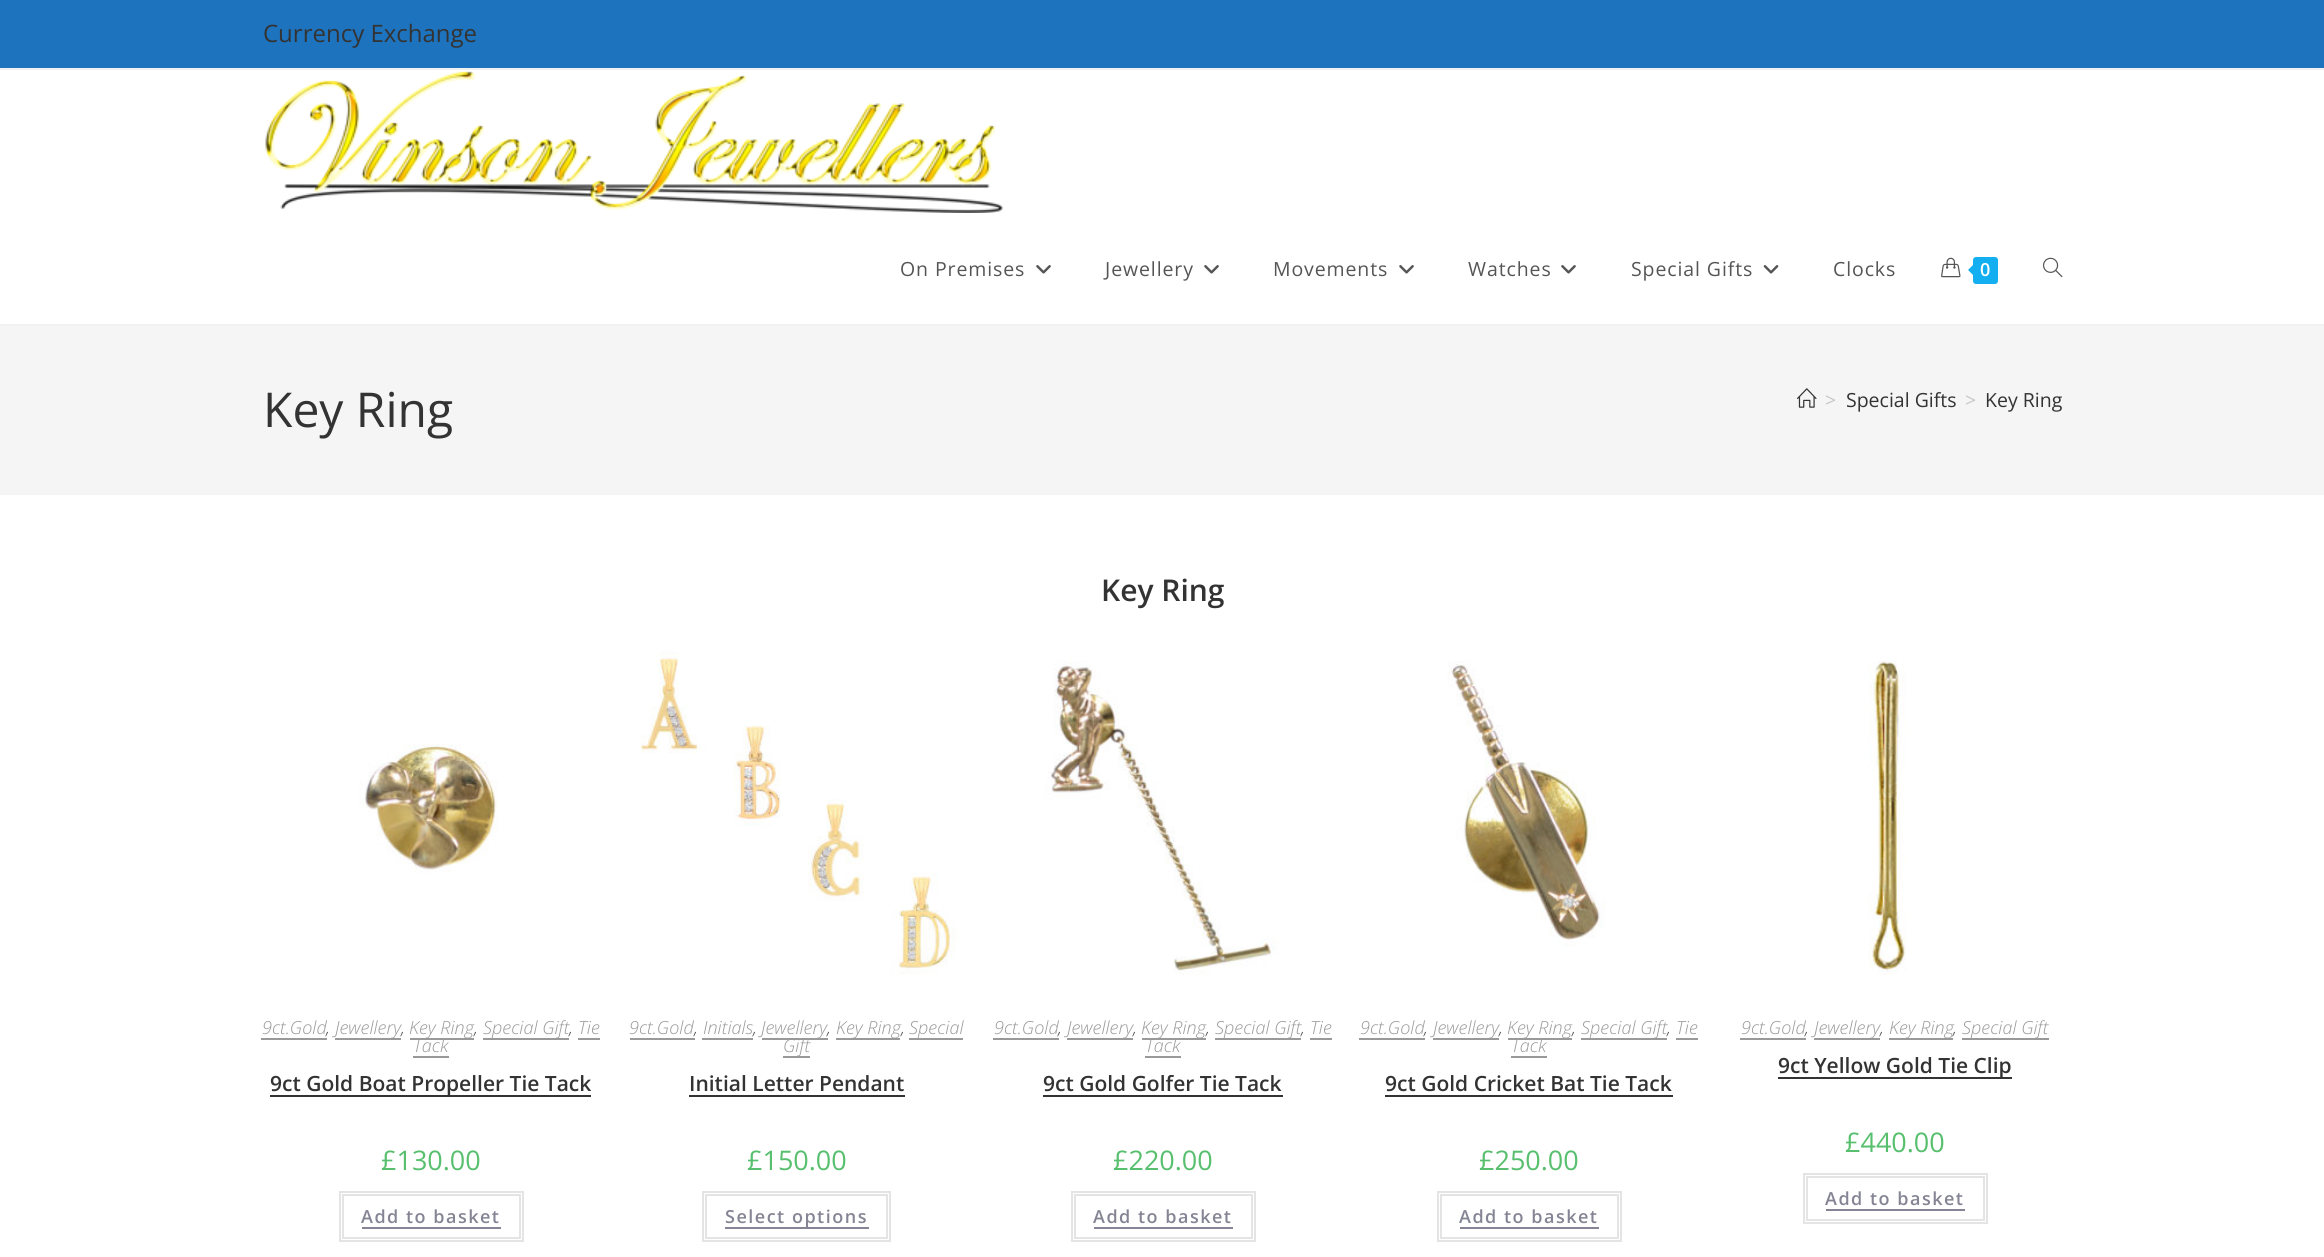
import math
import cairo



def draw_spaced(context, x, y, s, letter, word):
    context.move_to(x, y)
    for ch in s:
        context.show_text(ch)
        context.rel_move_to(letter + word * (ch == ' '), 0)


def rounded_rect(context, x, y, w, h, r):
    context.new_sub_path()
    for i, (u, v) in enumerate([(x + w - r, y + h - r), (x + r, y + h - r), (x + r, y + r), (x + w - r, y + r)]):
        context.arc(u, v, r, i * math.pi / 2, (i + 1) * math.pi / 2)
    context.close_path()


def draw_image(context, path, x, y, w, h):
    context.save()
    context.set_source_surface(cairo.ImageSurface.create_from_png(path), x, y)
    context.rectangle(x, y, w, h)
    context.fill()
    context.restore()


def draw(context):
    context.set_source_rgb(1, 1, 1)
    context.paint()
    context.set_source_rgb(30 / 255, 115 / 255, 190 / 255)
    context.rectangle(0, 0, 2324, 68)
    context.fill()
    context.set_source_rgb(241 / 255, 241 / 255, 241 / 255)
    context.rectangle(0, 68, 2324, 2)
    context.fill()
    context.rectangle(0, 324, 2324, 2)
    context.fill()
    draw_image(context, "images/1.png", 265, 71, 739, 142)
    draw_image(context, "images/2.png", 1036, 265, 15, 9)
    draw_image(context, "images/2.png", 1204, 265, 15, 9)
    draw_image(context, "images/2.png", 1399, 265, 15, 9)
    draw_image(context, "images/2.png", 1561, 265, 15, 9)
    draw_image(context, "images/3.png", 1763, 265, 16, 9)
    draw_image(context, "images/4.png", 1941, 257, 20, 21)
    context.set_source_rgb(19 / 255, 175 / 255, 240 / 255)
    rounded_rect(context, 1973, 257, 25, 27, 3)
    context.fill()
    context.new_path()
    context.move_to(1975.5, 262.5)
    context.line_to(1975.5, 277.5)
    context.line_to(1968, 270)
    context.close_path()
    context.fill()
    draw_image(context, "images/5.png", 2042, 257, 21, 21)
    context.set_source_rgb(245 / 255, 245 / 255, 245 / 255)
    context.rectangle(0, 326, 2324, 169)
    context.fill()
    draw_image(context, "images/6.png", 1797, 388, 20, 20)
    draw_image(context, "images/7.png", 321, 725, 227, 184)
    context.set_source_rgb(153 / 255, 153 / 255, 153 / 255)
    context.rectangle(261, 1038, 66, 2)
    context.fill()
    context.rectangle(335, 1038, 66, 2)
    context.fill()
    context.rectangle(410, 1038, 64, 2)
    context.fill()
    context.rectangle(483, 1038, 86, 2)
    context.fill()
    context.rectangle(578, 1038, 22, 2)
    context.fill()
    context.rectangle(413, 1056, 36, 2)
    context.fill()
    context.set_source_rgb(51 / 255, 51 / 255, 51 / 255)
    context.rectangle(270, 1095, 321, 2)
    context.fill()
    context.rectangle(340, 1192, 183, 49)
    context.set_source_rgb(228 / 255, 228 / 255, 228 / 255)
    context.stroke()
    context.rectangle(343, 1195, 177, 43)
    context.stroke()
    context.set_source_rgb(132 / 255, 132 / 255, 148 / 255)
    context.rectangle(362, 1227, 139, 2)
    context.fill()
    draw_image(context, "images/8.png", 641, 651, 316, 324)
    context.set_source_rgb(153 / 255, 153 / 255, 153 / 255)
    context.rectangle(630, 1038, 65, 2)
    context.fill()
    context.rectangle(702, 1038, 51, 2)
    context.fill()
    context.rectangle(762, 1038, 66, 2)
    context.fill()
    context.rectangle(836, 1038, 64, 2)
    context.fill()
    context.rectangle(909, 1038, 54, 2)
    context.fill()
    context.rectangle(783, 1056, 27, 2)
    context.fill()
    context.set_source_rgb(51 / 255, 51 / 255, 51 / 255)
    context.rectangle(689, 1095, 216, 2)
    context.fill()
    context.rectangle(703, 1192, 187, 49)
    context.set_source_rgb(228 / 255, 228 / 255, 228 / 255)
    context.stroke()
    context.rectangle(706, 1195, 181, 43)
    context.stroke()
    context.set_source_rgb(132 / 255, 132 / 255, 148 / 255)
    context.rectangle(725, 1227, 144, 2)
    context.fill()
    draw_image(context, "images/9.png", 1022, 642, 273, 341)
    context.set_source_rgb(153 / 255, 153 / 255, 153 / 255)
    context.rectangle(993, 1038, 66, 2)
    context.fill()
    context.rectangle(1067, 1038, 66, 2)
    context.fill()
    context.rectangle(1142, 1038, 64, 2)
    context.fill()
    context.rectangle(1215, 1038, 86, 2)
    context.fill()
    context.rectangle(1310, 1038, 22, 2)
    context.fill()
    context.rectangle(1145, 1056, 36, 2)
    context.fill()
    context.set_source_rgb(51 / 255, 51 / 255, 51 / 255)
    context.rectangle(1043, 1095, 240, 2)
    context.fill()
    context.rectangle(1072, 1192, 183, 49)
    context.set_source_rgb(228 / 255, 228 / 255, 228 / 255)
    context.stroke()
    context.rectangle(1075, 1195, 177, 43)
    context.stroke()
    context.set_source_rgb(132 / 255, 132 / 255, 148 / 255)
    context.rectangle(1094, 1227, 139, 2)
    context.fill()
    draw_image(context, "images/10.png", 1419, 661, 227, 286)
    context.set_source_rgb(153 / 255, 153 / 255, 153 / 255)
    context.rectangle(1359, 1038, 66, 2)
    context.fill()
    context.rectangle(1433, 1038, 66, 2)
    context.fill()
    context.rectangle(1508, 1038, 64, 2)
    context.fill()
    context.rectangle(1581, 1038, 86, 2)
    context.fill()
    context.rectangle(1676, 1038, 22, 2)
    context.fill()
    context.rectangle(1511, 1056, 36, 2)
    context.fill()
    context.set_source_rgb(51 / 255, 51 / 255, 51 / 255)
    context.rectangle(1385, 1095, 288, 2)
    context.fill()
    context.rectangle(1438, 1192, 183, 49)
    context.set_source_rgb(228 / 255, 228 / 255, 228 / 255)
    context.stroke()
    context.rectangle(1441, 1195, 177, 43)
    context.stroke()
    context.set_source_rgb(132 / 255, 132 / 255, 148 / 255)
    context.rectangle(1460, 1227, 139, 2)
    context.fill()
    draw_image(context, "images/11.png", 1785, 660, 227, 315)
    context.set_source_rgb(153 / 255, 153 / 255, 153 / 255)
    context.rectangle(1740, 1038, 66, 2)
    context.fill()
    context.rectangle(1814, 1038, 66, 2)
    context.fill()
    context.rectangle(1889, 1038, 64, 2)
    context.fill()
    context.rectangle(1962, 1038, 87, 2)
    context.fill()
    context.set_source_rgb(51 / 255, 51 / 255, 51 / 255)
    context.rectangle(1778, 1077, 234, 2)
    context.fill()
    context.rectangle(1804, 1174, 183, 49)
    context.set_source_rgb(228 / 255, 228 / 255, 228 / 255)
    context.stroke()
    context.rectangle(1807, 1177, 177, 43)
    context.stroke()
    context.set_source_rgb(132 / 255, 132 / 255, 148 / 255)
    context.rectangle(1826, 1209, 139, 2)
    context.fill()
    context.select_font_face("Open Sans")
    context.set_font_size(24)
    context.set_source_rgb(51 / 255, 51 / 255, 51 / 255)
    context.move_to(263, 42)
    context.show_text("Currency Exchange")
    context.set_font_size(19.5)
    context.set_source_rgb(85 / 255, 85 / 255, 85 / 255)
    draw_spaced(context, 900, 276, "On Premises", 0.9, 0)
    draw_spaced(context, 1105, 276, "Jewellery", 0.9, 0)
    draw_spaced(context, 1273, 276, "Movements", 0.9, 0)
    draw_spaced(context, 1468, 276, "Watches", 0.9, 0)
    draw_spaced(context, 1631, 276, "Special Gifts", 0.9, 0)
    draw_spaced(context, 1833, 276, "Clocks", 0.9, 0)
    context.select_font_face("Open Sans SemiBold")
    context.set_font_size(18)
    context.set_source_rgb(1, 1, 1)
    context.move_to(1980, 276)
    context.show_text("0")
    context.select_font_face("Open Sans")
    context.set_font_size(48)
    context.set_source_rgb(51 / 255, 51 / 255, 51 / 255)
    context.move_to(263, 427)
    context.show_text("Key Ring")
    context.set_font_size(19.5)
    context.set_source_rgb(198 / 255, 198 / 255, 198 / 255)
    context.move_to(1825, 407)
    context.show_text(">")
    context.set_source_rgb(51 / 255, 51 / 255, 51 / 255)
    context.move_to(1846, 407)
    context.show_text("Special Gifts")
    context.set_source_rgb(198 / 255, 198 / 255, 198 / 255)
    context.move_to(1965, 407)
    context.show_text(">")
    context.set_source_rgb(51 / 255, 51 / 255, 51 / 255)
    context.move_to(1985, 407)
    context.show_text("Key Ring")
    context.select_font_face("Open Sans SemiBold")
    context.set_font_size(30)
    context.move_to(1101, 601)
    context.show_text("Key Ring")
    context.select_font_face("Open Sans Light", cairo.FontSlant.ITALIC)
    context.set_font_size(18)
    context.set_source_rgb(153 / 255, 153 / 255, 153 / 255)
    context.move_to(262, 1034)
    context.show_text("9ct.Gold")
    context.move_to(335, 1034)
    context.show_text("Jewellery")
    context.move_to(409, 1034)
    context.show_text("Key Ring")
    context.move_to(483, 1034)
    context.show_text("Special Gift")
    context.move_to(578, 1034)
    context.show_text("Tie")
    context.set_source_rgb(74 / 255, 74 / 255, 74 / 255)
    context.move_to(326, 1034)
    context.show_text(",")
    context.move_to(401, 1034)
    context.show_text(",")
    context.move_to(474, 1034)
    context.show_text(",")
    context.move_to(569, 1034)
    context.show_text(",")
    context.set_source_rgb(153 / 255, 153 / 255, 153 / 255)
    context.move_to(413, 1052)
    context.show_text("Tack")
    context.select_font_face("Open Sans SemiBold")
    context.set_font_size(21)
    context.set_source_rgb(51 / 255, 51 / 255, 51 / 255)
    context.move_to(270, 1091)
    context.show_text("9ct Gold Boat Propeller Tie Tack")
    context.select_font_face("Open Sans")
    context.set_font_size(27)
    context.set_source_rgb(87 / 255, 191 / 255, 109 / 255)
    context.move_to(381, 1170)
    context.show_text("£130.00")
    context.select_font_face("Open Sans SemiBold")
    context.set_font_size(18)
    context.set_source_rgb(132 / 255, 132 / 255, 148 / 255)
    draw_spaced(context, 361, 1223, "Add to basket", 1.5, 0)
    context.select_font_face("Open Sans Light", cairo.FontSlant.ITALIC)
    context.set_source_rgb(153 / 255, 153 / 255, 153 / 255)
    context.move_to(629, 1034)
    context.show_text("9ct.Gold")
    context.move_to(703, 1034)
    context.show_text("Initials")
    context.move_to(761, 1034)
    context.show_text("Jewellery")
    context.move_to(836, 1034)
    context.show_text("Key Ring")
    context.move_to(909, 1034)
    context.show_text("Special")
    context.set_source_rgb(74 / 255, 74 / 255, 74 / 255)
    context.move_to(694, 1034)
    context.show_text(",")
    context.move_to(753, 1034)
    context.show_text(",")
    context.move_to(827, 1034)
    context.show_text(",")
    context.move_to(901, 1034)
    context.show_text(",")
    context.set_source_rgb(153 / 255, 153 / 255, 153 / 255)
    context.move_to(783, 1052)
    context.show_text("Gift")
    context.select_font_face("Open Sans SemiBold")
    context.set_font_size(21)
    context.set_source_rgb(51 / 255, 51 / 255, 51 / 255)
    context.move_to(689, 1091)
    context.show_text("Initial Letter Pendant")
    context.select_font_face("Open Sans")
    context.set_font_size(27)
    context.set_source_rgb(87 / 255, 191 / 255, 109 / 255)
    context.move_to(747, 1170)
    context.show_text("£150.00")
    context.select_font_face("Open Sans SemiBold")
    context.set_font_size(18)
    context.set_source_rgb(132 / 255, 132 / 255, 148 / 255)
    draw_spaced(context, 725, 1223, "Select options", 1.5, 0)
    context.select_font_face("Open Sans Light", cairo.FontSlant.ITALIC)
    context.set_source_rgb(153 / 255, 153 / 255, 153 / 255)
    context.move_to(994, 1034)
    context.show_text("9ct.Gold")
    context.move_to(1067, 1034)
    context.show_text("Jewellery")
    context.move_to(1141, 1034)
    context.show_text("Key Ring")
    context.move_to(1215, 1034)
    context.show_text("Special Gift")
    context.move_to(1310, 1034)
    context.show_text("Tie")
    context.set_source_rgb(74 / 255, 74 / 255, 74 / 255)
    context.move_to(1058, 1034)
    context.show_text(",")
    context.move_to(1133, 1034)
    context.show_text(",")
    context.move_to(1206, 1034)
    context.show_text(",")
    context.move_to(1301, 1034)
    context.show_text(",")
    context.set_source_rgb(153 / 255, 153 / 255, 153 / 255)
    context.move_to(1145, 1052)
    context.show_text("Tack")
    context.select_font_face("Open Sans SemiBold")
    context.set_font_size(21)
    context.set_source_rgb(51 / 255, 51 / 255, 51 / 255)
    context.move_to(1043, 1091)
    context.show_text("9ct Gold Golfer Tie Tack")
    context.select_font_face("Open Sans")
    context.set_font_size(27)
    context.set_source_rgb(87 / 255, 191 / 255, 109 / 255)
    context.move_to(1113, 1170)
    context.show_text("£220.00")
    context.select_font_face("Open Sans SemiBold")
    context.set_font_size(18)
    context.set_source_rgb(132 / 255, 132 / 255, 148 / 255)
    draw_spaced(context, 1093, 1223, "Add to basket", 1.5, 0)
    context.select_font_face("Open Sans Light", cairo.FontSlant.ITALIC)
    context.set_source_rgb(153 / 255, 153 / 255, 153 / 255)
    context.move_to(1360, 1034)
    context.show_text("9ct.Gold")
    context.move_to(1433, 1034)
    context.show_text("Jewellery")
    context.move_to(1507, 1034)
    context.show_text("Key Ring")
    context.move_to(1581, 1034)
    context.show_text("Special Gift")
    context.move_to(1676, 1034)
    context.show_text("Tie")
    context.set_source_rgb(74 / 255, 74 / 255, 74 / 255)
    context.move_to(1424, 1034)
    context.show_text(",")
    context.move_to(1499, 1034)
    context.show_text(",")
    context.move_to(1572, 1034)
    context.show_text(",")
    context.move_to(1667, 1034)
    context.show_text(",")
    context.set_source_rgb(153 / 255, 153 / 255, 153 / 255)
    context.move_to(1511, 1052)
    context.show_text("Tack")
    context.select_font_face("Open Sans SemiBold")
    context.set_font_size(21)
    context.set_source_rgb(51 / 255, 51 / 255, 51 / 255)
    context.move_to(1385, 1091)
    context.show_text("9ct Gold Cricket Bat Tie Tack")
    context.select_font_face("Open Sans")
    context.set_font_size(27)
    context.set_source_rgb(87 / 255, 191 / 255, 109 / 255)
    context.move_to(1479, 1170)
    context.show_text("£250.00")
    context.select_font_face("Open Sans SemiBold")
    context.set_font_size(18)
    context.set_source_rgb(132 / 255, 132 / 255, 148 / 255)
    draw_spaced(context, 1459, 1223, "Add to basket", 1.5, 0)
    context.select_font_face("Open Sans Light", cairo.FontSlant.ITALIC)
    context.set_source_rgb(153 / 255, 153 / 255, 153 / 255)
    context.move_to(1741, 1034)
    context.show_text("9ct.Gold")
    context.move_to(1814, 1034)
    context.show_text("Jewellery")
    context.move_to(1889, 1034)
    context.show_text("Key Ring")
    context.move_to(1962, 1034)
    context.show_text("Special Gift")
    context.set_source_rgb(74 / 255, 74 / 255, 74 / 255)
    context.move_to(1805, 1034)
    context.show_text(",")
    context.move_to(1880, 1034)
    context.show_text(",")
    context.move_to(1953, 1034)
    context.show_text(",")
    context.select_font_face("Open Sans SemiBold")
    context.set_font_size(21)
    context.set_source_rgb(51 / 255, 51 / 255, 51 / 255)
    context.move_to(1778, 1073)
    context.show_text("9ct Yellow Gold Tie Clip")
    context.select_font_face("Open Sans")
    context.set_font_size(27)
    context.set_source_rgb(87 / 255, 191 / 255, 109 / 255)
    context.move_to(1845, 1152)
    context.show_text("£440.00")
    context.select_font_face("Open Sans SemiBold")
    context.set_font_size(18)
    context.set_source_rgb(132 / 255, 132 / 255, 148 / 255)
    draw_spaced(context, 1825, 1205, "Add to basket", 1.5, 0)


surface = cairo.ImageSurface(cairo.Format.RGB24, 2324, 1257)
context = cairo.Context(surface)
options = cairo.FontOptions()
options.set_hint_metrics(cairo.HintMetrics.OFF)
options.set_hint_style(cairo.HintStyle.NONE)
context.set_font_options(options)
context.set_miter_limit(4)
draw(context)
surface.write_to_png("out.png")
